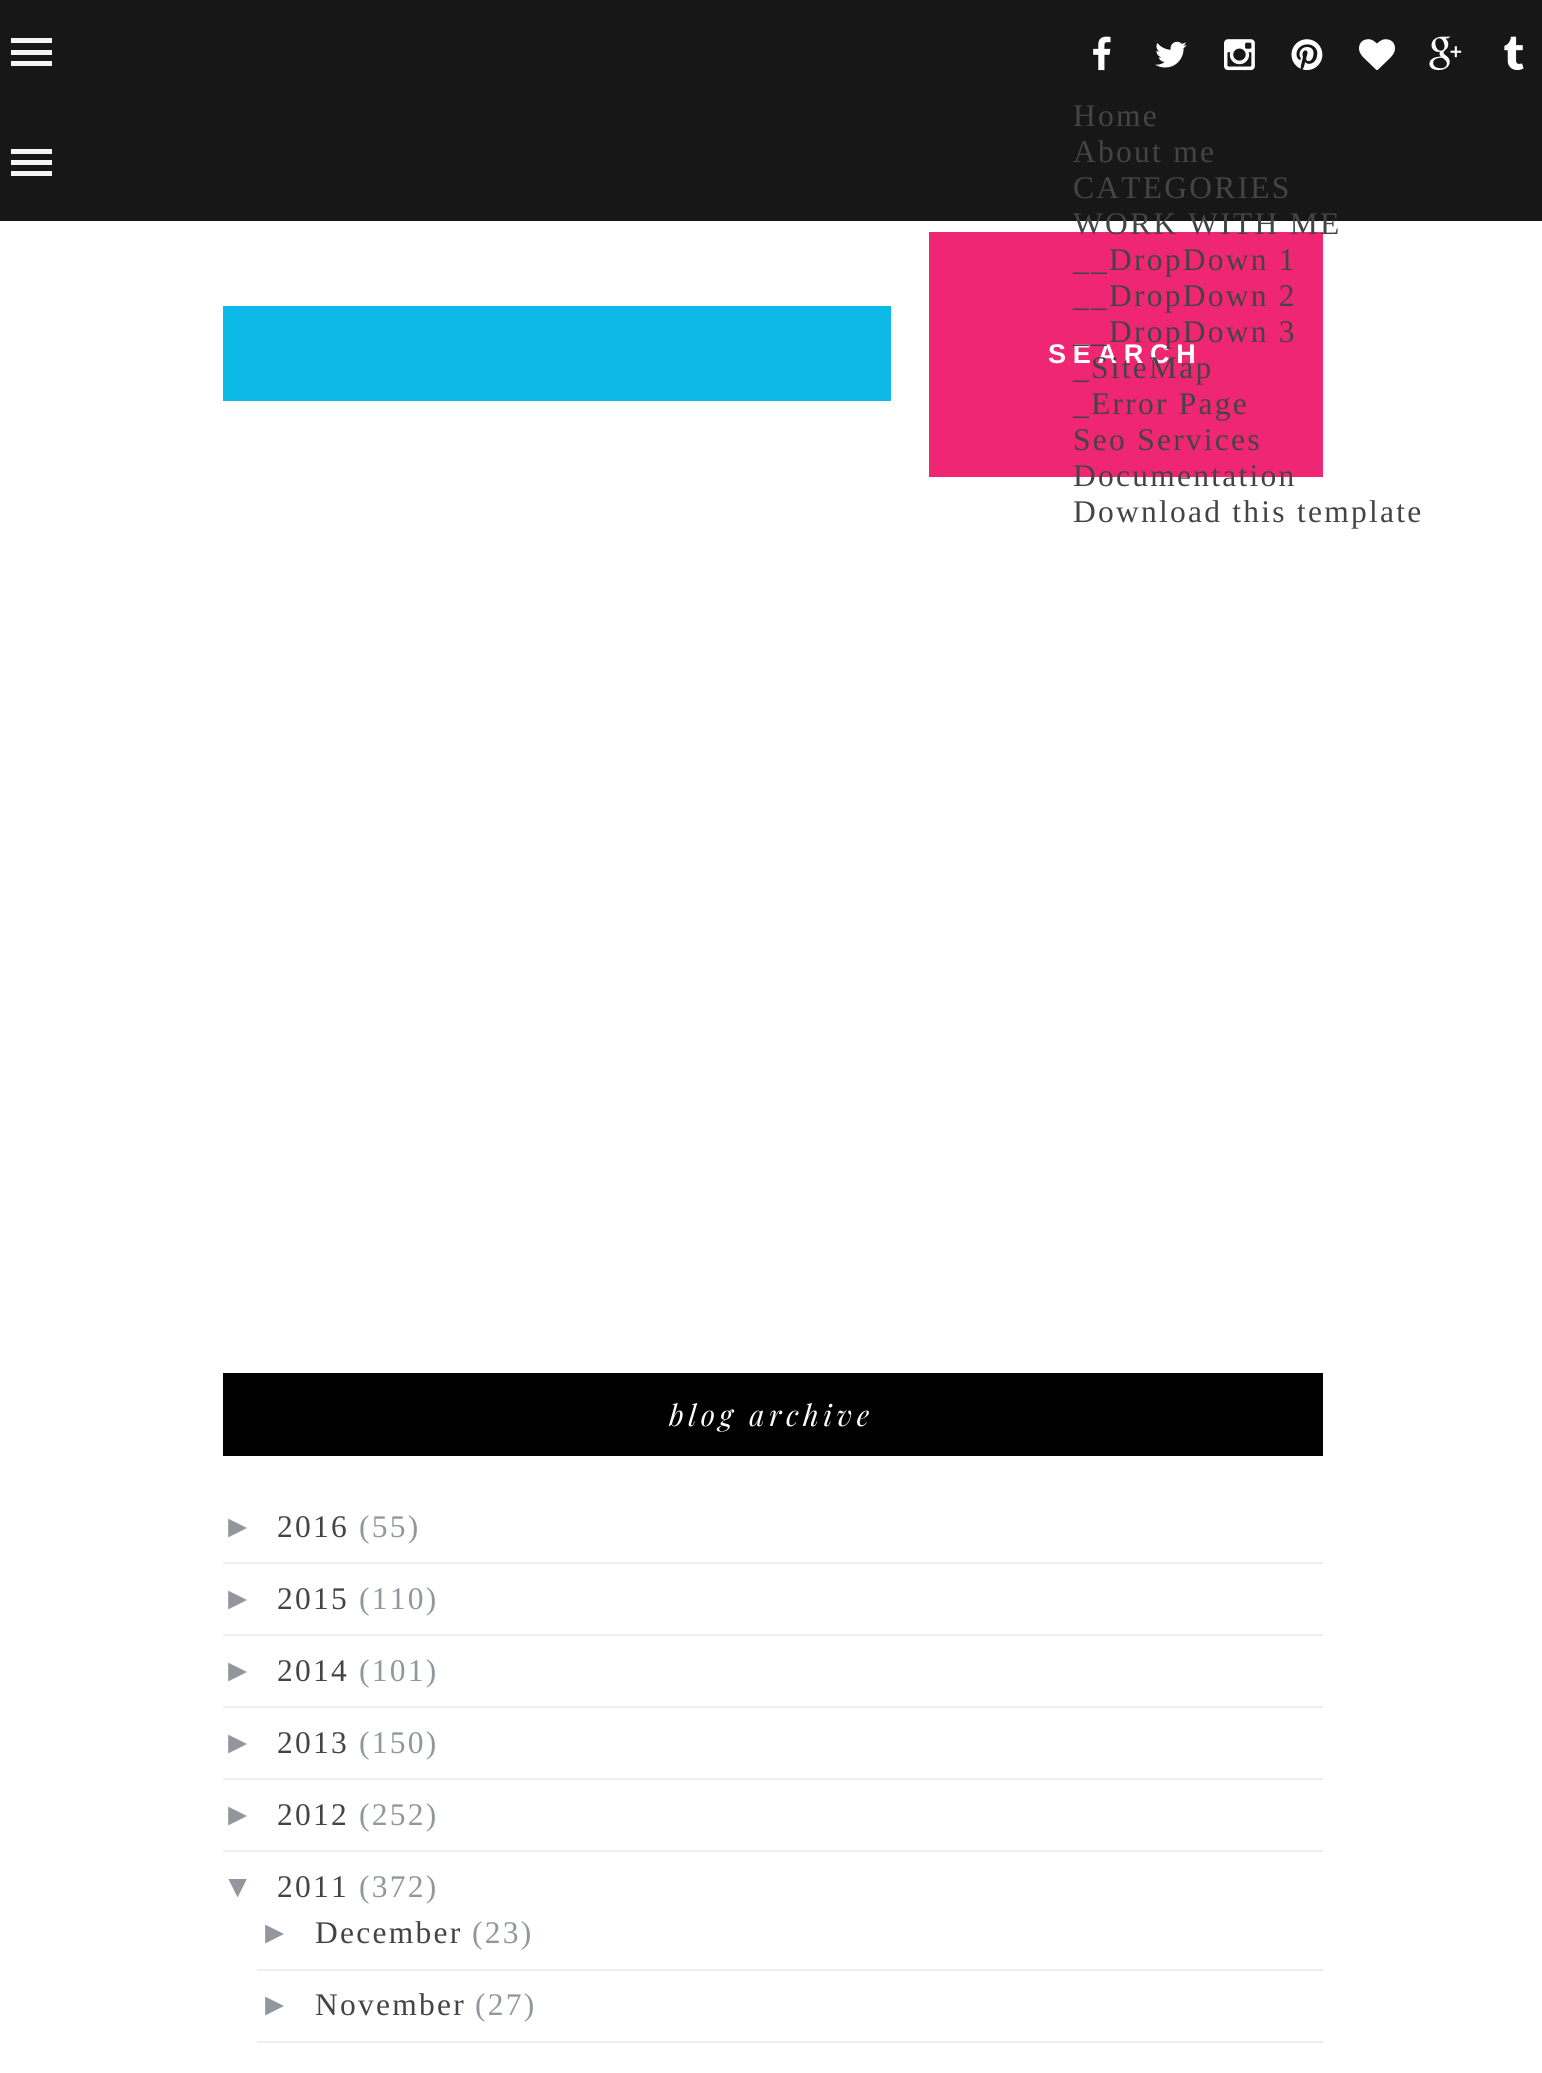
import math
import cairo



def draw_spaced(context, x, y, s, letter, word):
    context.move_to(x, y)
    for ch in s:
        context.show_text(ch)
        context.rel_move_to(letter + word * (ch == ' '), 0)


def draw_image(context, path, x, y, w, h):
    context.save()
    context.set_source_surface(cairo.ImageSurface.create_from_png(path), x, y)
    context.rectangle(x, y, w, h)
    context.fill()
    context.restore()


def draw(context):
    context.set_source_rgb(1, 1, 1)
    context.paint()
    context.set_source_rgb(13 / 255, 185 / 255, 231 / 255)
    context.rectangle(223, 306, 668, 95)
    context.fill()
    context.set_source_rgb(239 / 255, 38 / 255, 115 / 255)
    context.rectangle(929, 232, 394, 245)
    context.fill()
    context.set_source_rgb(0, 0, 0)
    context.rectangle(223, 1373, 1100, 83)
    context.fill()
    context.set_source_rgb(238 / 255, 238 / 255, 238 / 255)
    context.rectangle(223, 1562, 1100, 2)
    context.fill()
    context.rectangle(223, 1634, 1100, 2)
    context.fill()
    context.rectangle(223, 1706, 1100, 2)
    context.fill()
    context.rectangle(223, 1778, 1100, 2)
    context.fill()
    context.rectangle(223, 1850, 1100, 2)
    context.fill()
    context.rectangle(257, 1969, 1066, 2)
    context.fill()
    context.rectangle(257, 2041, 1066, 2)
    context.fill()
    context.set_source_rgb(23 / 255, 23 / 255, 23 / 255)
    context.rectangle(0, 0, 1542, 221)
    context.fill()
    context.set_source_rgb(245 / 255, 245 / 255, 245 / 255)
    context.rectangle(11, 38, 41, 5)
    context.fill()
    context.rectangle(11, 50, 41, 5)
    context.fill()
    context.rectangle(11, 61, 41, 5)
    context.fill()
    context.rectangle(11, 149, 41, 5)
    context.fill()
    context.rectangle(11, 160, 41, 5)
    context.fill()
    context.rectangle(11, 171, 41, 5)
    context.fill()
    draw_image(context, "images/1.png", 1093, 36, 18, 35)
    draw_image(context, "images/2.png", 1155, 41, 32, 27)
    draw_image(context, "images/3.png", 1224, 39, 31, 32)
    draw_image(context, "images/4.png", 1291, 39, 32, 32)
    draw_image(context, "images/5.png", 1359, 39, 36, 31)
    draw_image(context, "images/6.png", 1429, 36, 33, 35)
    draw_image(context, "images/7.png", 1504, 36, 20, 35)
    context.select_font_face("Liberation Sans", cairo.FontSlant.NORMAL, cairo.FontWeight.BOLD)
    context.set_font_size(27)
    context.set_source_rgb(1, 1, 1)
    draw_spaced(context, 1048, 363, "SEARCH", 6.75, 0)
    context.select_font_face("Playfair Display", cairo.FontSlant.ITALIC)
    context.set_font_size(29.25)
    draw_spaced(context, 669, 1426, "blog archive", 4.5, 0)
    context.select_font_face("Liberation Sans")
    context.set_font_size(31.5)
    context.set_source_rgb(145 / 255, 151 / 255, 157 / 255)
    draw_spaced(context, 222, 1537, "►", 2.25, 0)
    context.select_font_face("Liberation Serif")
    context.set_source_rgb(68 / 255, 68 / 255, 68 / 255)
    draw_spaced(context, 277, 1537, "2016", 2.25, 0)
    context.set_source_rgb(145 / 255, 151 / 255, 157 / 255)
    draw_spaced(context, 359, 1537, "(55)", 2.25, 0)
    context.select_font_face("Liberation Sans")
    draw_spaced(context, 222, 1609, "►", 2.25, 0)
    context.select_font_face("Liberation Serif")
    context.set_source_rgb(68 / 255, 68 / 255, 68 / 255)
    draw_spaced(context, 277, 1609, "2015", 2.25, 0)
    context.set_source_rgb(145 / 255, 151 / 255, 157 / 255)
    draw_spaced(context, 359, 1609, "(110)", 2.25, 0)
    context.select_font_face("Liberation Sans")
    draw_spaced(context, 222, 1681, "►", 2.25, 0)
    context.select_font_face("Liberation Serif")
    context.set_source_rgb(68 / 255, 68 / 255, 68 / 255)
    draw_spaced(context, 277, 1681, "2014", 2.25, 0)
    context.set_source_rgb(145 / 255, 151 / 255, 157 / 255)
    draw_spaced(context, 359, 1681, "(101)", 2.25, 0)
    context.select_font_face("Liberation Sans")
    draw_spaced(context, 222, 1753, "►", 2.25, 0)
    context.select_font_face("Liberation Serif")
    context.set_source_rgb(68 / 255, 68 / 255, 68 / 255)
    draw_spaced(context, 277, 1753, "2013", 2.25, 0)
    context.set_source_rgb(145 / 255, 151 / 255, 157 / 255)
    draw_spaced(context, 359, 1753, "(150)", 2.25, 0)
    context.select_font_face("Liberation Sans")
    draw_spaced(context, 222, 1825, "►", 2.25, 0)
    context.select_font_face("Liberation Serif")
    context.set_source_rgb(68 / 255, 68 / 255, 68 / 255)
    draw_spaced(context, 277, 1825, "2012", 2.25, 0)
    context.set_source_rgb(145 / 255, 151 / 255, 157 / 255)
    draw_spaced(context, 359, 1825, "(252)", 2.25, 0)
    context.select_font_face("Liberation Sans")
    draw_spaced(context, 222, 1897, "▼", 2.25, 0)
    context.select_font_face("Liberation Serif")
    context.set_source_rgb(68 / 255, 68 / 255, 68 / 255)
    draw_spaced(context, 277, 1897, "2011", 2.25, 0)
    context.set_source_rgb(145 / 255, 151 / 255, 157 / 255)
    draw_spaced(context, 359, 1897, "(372)", 2.25, 0)
    context.select_font_face("Liberation Sans")
    draw_spaced(context, 259, 1943, "►", 2.25, 0)
    context.select_font_face("Liberation Serif")
    context.set_source_rgb(68 / 255, 68 / 255, 68 / 255)
    draw_spaced(context, 315, 1943, "December", 2.25, 0)
    context.set_source_rgb(145 / 255, 151 / 255, 157 / 255)
    draw_spaced(context, 472, 1943, "(23)", 2.25, 0)
    context.select_font_face("Liberation Sans")
    draw_spaced(context, 259, 2015, "►", 2.25, 0)
    context.select_font_face("Liberation Serif")
    context.set_source_rgb(68 / 255, 68 / 255, 68 / 255)
    draw_spaced(context, 315, 2015, "November", 2.25, 0)
    context.set_source_rgb(145 / 255, 151 / 255, 157 / 255)
    draw_spaced(context, 475, 2015, "(27)", 2.25, 0)
    context.set_source_rgb(68 / 255, 68 / 255, 68 / 255)
    draw_spaced(context, 1073, 126, "Home", 2.25, 0)
    draw_spaced(context, 1073, 162, "About me", 2.25, 0)
    draw_spaced(context, 1073, 198, "CATEGORIES", 2.25, 0)
    draw_spaced(context, 1073, 234, "WORK WITH ME", 2.25, 0)
    draw_spaced(context, 1073, 270, "__DropDown 1", 2.25, 0)
    draw_spaced(context, 1073, 306, "__DropDown 2", 2.25, 0)
    draw_spaced(context, 1073, 342, "__DropDown 3", 2.25, 0)
    draw_spaced(context, 1073, 378, "_SiteMap", 2.25, 0)
    draw_spaced(context, 1073, 414, "_Error Page", 2.25, 0)
    draw_spaced(context, 1073, 450, "Seo Services", 2.25, 0)
    draw_spaced(context, 1073, 486, "Documentation", 2.25, 0)
    draw_spaced(context, 1073, 522, "Download this template", 2.25, 0)


surface = cairo.ImageSurface(cairo.Format.RGB24, 1542, 2073)
context = cairo.Context(surface)
options = cairo.FontOptions()
options.set_hint_metrics(cairo.HintMetrics.OFF)
options.set_hint_style(cairo.HintStyle.NONE)
context.set_font_options(options)
context.set_miter_limit(4)
draw(context)
surface.write_to_png("out.png")
